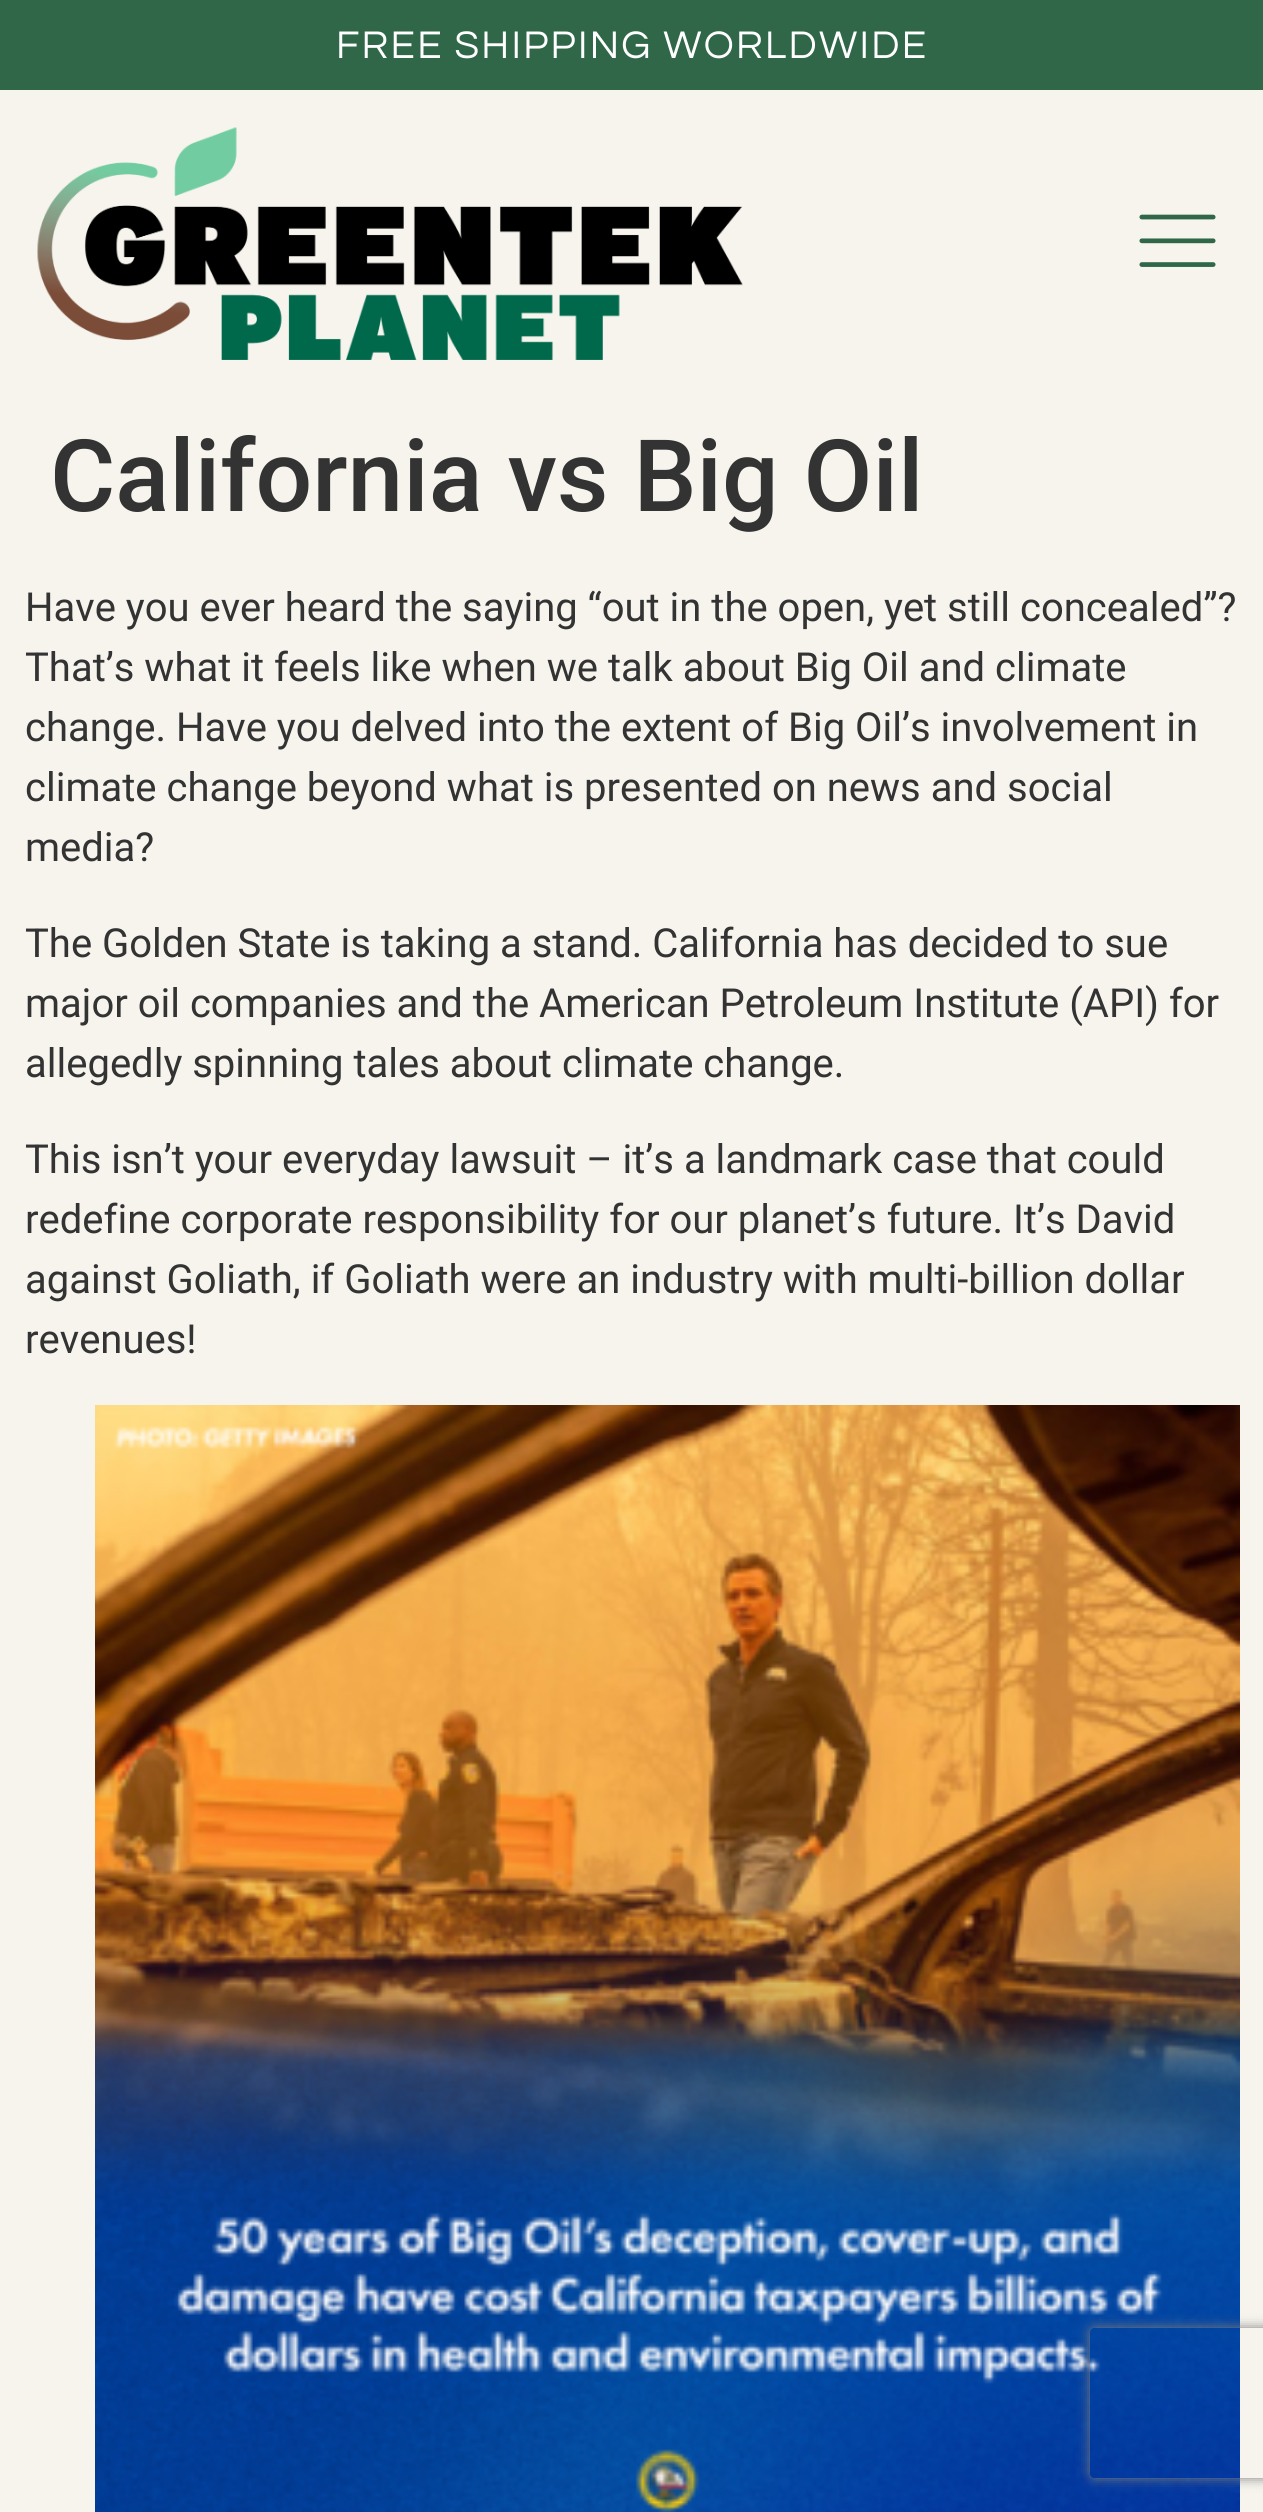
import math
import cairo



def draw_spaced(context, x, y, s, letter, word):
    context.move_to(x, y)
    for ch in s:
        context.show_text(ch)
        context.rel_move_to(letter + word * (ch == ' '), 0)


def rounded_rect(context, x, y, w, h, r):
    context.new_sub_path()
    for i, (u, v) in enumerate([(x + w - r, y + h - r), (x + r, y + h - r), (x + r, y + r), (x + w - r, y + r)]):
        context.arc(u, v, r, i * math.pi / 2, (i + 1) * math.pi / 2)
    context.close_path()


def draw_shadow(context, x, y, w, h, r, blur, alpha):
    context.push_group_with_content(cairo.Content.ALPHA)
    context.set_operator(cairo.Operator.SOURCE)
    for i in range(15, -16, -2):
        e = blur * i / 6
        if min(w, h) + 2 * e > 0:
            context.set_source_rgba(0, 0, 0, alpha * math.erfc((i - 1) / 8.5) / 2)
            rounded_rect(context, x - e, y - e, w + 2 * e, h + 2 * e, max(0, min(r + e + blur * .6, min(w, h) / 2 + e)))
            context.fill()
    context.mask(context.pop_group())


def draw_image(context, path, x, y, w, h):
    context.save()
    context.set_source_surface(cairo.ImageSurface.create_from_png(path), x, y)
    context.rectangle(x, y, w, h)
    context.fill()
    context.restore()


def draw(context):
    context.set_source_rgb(246 / 255, 244 / 255, 237 / 255)
    context.paint()
    context.set_source_rgb(47 / 255, 103 / 255, 72 / 255)
    context.rectangle(0, 0, 1263, 90)
    context.fill()
    draw_image(context, "images/1.png", 37, 127, 706, 233)
    draw_image(context, "images/2.png", 1139, 214, 77, 53)
    draw_image(context, "images/3.png", 95, 1405, 1145, 1107)
    context.save()
    context.set_fill_rule(cairo.FillRule.EVEN_ODD)
    context.new_path()
    context.move_to(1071, 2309)
    context.line_to(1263, 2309)
    context.line_to(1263, 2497)
    context.line_to(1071, 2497)
    context.close_path()
    context.move_to(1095, 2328)
    context.line_to(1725, 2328)
    context.curve_to(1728, 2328, 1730, 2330, 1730, 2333)
    context.line_to(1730, 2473)
    context.curve_to(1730, 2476, 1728, 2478, 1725, 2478)
    context.line_to(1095, 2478)
    context.curve_to(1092, 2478, 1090, 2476, 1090, 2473)
    context.line_to(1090, 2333)
    context.curve_to(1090, 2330, 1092, 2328, 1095, 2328)
    context.close_path()
    context.clip()
    context.set_source_rgb(128 / 255, 128 / 255, 128 / 255)
    draw_shadow(context, 1090, 2328, 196, 150, 5, 6, 1)
    context.restore()
    context.select_font_face("Questrial")
    context.set_font_size(40)
    context.set_source_rgb(1, 1, 1)
    draw_spaced(context, 336, 58, "FREE SHIPPING WORLDWIDE", 2.25, 0)
    context.select_font_face("Roboto Medium")
    context.set_font_size(100)
    context.set_source_rgb(51 / 255, 51 / 255, 51 / 255)
    context.move_to(50, 511)
    context.show_text("California vs Big Oil")
    context.select_font_face("Roboto")
    context.set_font_size(40)
    context.move_to(25, 621)
    context.show_text("Have you ever heard the saying “out in the open, yet still concealed”?")
    context.move_to(25, 681)
    context.show_text("That’s what it feels like when we talk about Big Oil and climate")
    context.move_to(25, 741)
    context.show_text("change. Have you delved into the extent of Big Oil’s involvement in")
    context.move_to(25, 801)
    context.show_text("climate change beyond what is presented on news and social")
    context.move_to(25, 861)
    context.show_text("media?")
    context.move_to(25, 957)
    context.show_text("The Golden State is taking a stand. California has decided to sue")
    context.move_to(25, 1017)
    context.show_text("major oil companies and the American Petroleum Institute (API) for")
    context.move_to(25, 1077)
    context.show_text("allegedly spinning tales about climate change.")
    context.move_to(25, 1173)
    context.show_text("This isn’t your everyday lawsuit – it’s a landmark case that could")
    context.move_to(25, 1233)
    context.show_text("redefine corporate responsibility for our planet’s future. It’s David")
    context.move_to(25, 1293)
    context.show_text("against Goliath, if Goliath were an industry with multi-billion dollar")
    context.move_to(25, 1353)
    context.show_text("revenues!")


surface = cairo.ImageSurface(cairo.Format.RGB24, 1263, 2512)
context = cairo.Context(surface)
options = cairo.FontOptions()
options.set_hint_metrics(cairo.HintMetrics.OFF)
options.set_hint_style(cairo.HintStyle.NONE)
context.set_font_options(options)
context.set_miter_limit(4)
draw(context)
surface.write_to_png("out.png")
